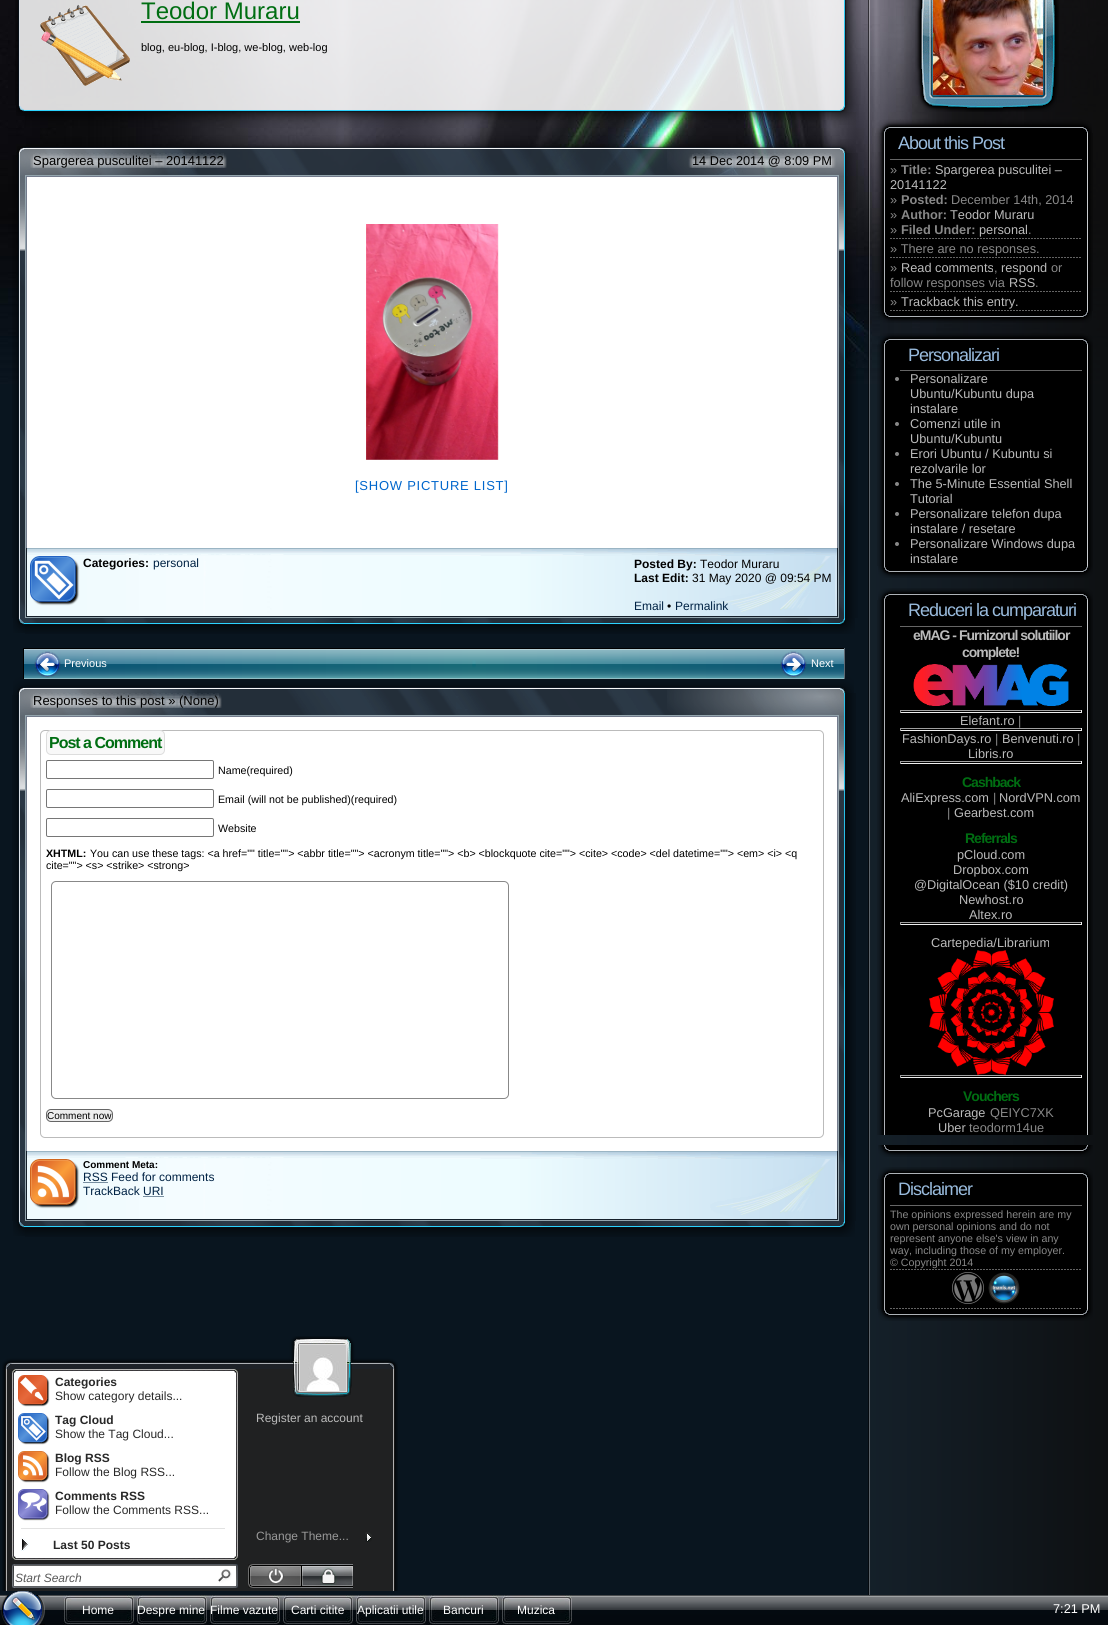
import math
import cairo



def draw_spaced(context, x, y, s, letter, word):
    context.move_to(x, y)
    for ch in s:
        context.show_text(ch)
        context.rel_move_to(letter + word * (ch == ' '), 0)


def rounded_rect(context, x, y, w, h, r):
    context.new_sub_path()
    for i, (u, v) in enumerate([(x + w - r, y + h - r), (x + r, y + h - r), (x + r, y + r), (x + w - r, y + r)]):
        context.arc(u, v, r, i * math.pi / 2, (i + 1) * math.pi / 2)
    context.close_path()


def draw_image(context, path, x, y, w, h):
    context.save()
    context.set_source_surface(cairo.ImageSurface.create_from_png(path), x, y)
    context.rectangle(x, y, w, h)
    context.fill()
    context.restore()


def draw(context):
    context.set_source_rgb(9 / 255, 21 / 255, 31 / 255)
    context.paint()
    draw_image(context, "images/1.png", 0, 0, 1108, 384)
    draw_image(context, "images/2.png", 15, 0, 5, 105)
    context.set_source_rgba(1, 1, 1, 0.85)
    context.rectangle(20, 0, 824, 110)
    context.fill()
    draw_image(context, "images/3.png", 844, 0, 17, 105)
    draw_image(context, "images/4.png", 40, 4, 90, 82)
    context.set_source_rgb(0, 110 / 255, 18 / 255)
    context.rectangle(141, 21, 159, 2)
    context.fill()
    draw_image(context, "images/5.png", 16, 105, 9, 11)
    draw_image(context, "images/6.png", 25, 110, 814, 18)
    draw_image(context, "images/7.png", 839, 105, 20, 20)
    draw_image(context, "images/11.png", 20, 148, 824, 475)
    draw_image(context, "images/13.png", 20, 149, 177, 102)
    draw_image(context, "images/8.png", 17, 146, 9, 9)
    draw_image(context, "images/9.png", 26, 135, 814, 14)
    draw_image(context, "images/14.png", 667, 149, 177, 102)
    draw_image(context, "images/10.png", 840, 139, 16, 14)
    draw_image(context, "images/12.png", 12, 155, 8, 463)
    draw_image(context, "images/15.png", 844, 153, 14, 465)
    draw_image(context, "images/16.png", 30, 155, 3, 13)
    draw_image(context, "images/17.png", 33, 153, 191, 15)
    draw_image(context, "images/18.png", 224, 154, 3, 14)
    draw_image(context, "images/19.png", 688, 154, 4, 14)
    draw_image(context, "images/20.png", 692, 153, 140, 15)
    draw_image(context, "images/21.png", 832, 155, 4, 13)
    context.set_source_rgb(1, 1, 1)
    context.rectangle(27, 177, 810, 371)
    context.fill()
    context.rectangle(25.5, 175.5, 813, 442)
    context.set_source_rgb(148 / 255, 165 / 255, 173 / 255)
    context.set_line_width(1)
    context.stroke()
    context.set_source_rgb(115 / 255, 123 / 255, 140 / 255)
    context.rectangle(26, 176, 812, 1)
    context.fill()
    context.rectangle(837, 176, 1, 372)
    context.fill()
    context.rectangle(26, 176, 1, 372)
    context.fill()
    draw_image(context, "images/22.png", 366, 224, 133, 236)
    draw_image(context, "images/23.png", 27, 556, 810, 60)
    context.set_source_rgb(21 / 255, 32 / 255, 43 / 255)
    context.rectangle(837, 548, 1, 69)
    context.fill()
    context.rectangle(26, 616, 812, 1)
    context.fill()
    context.rectangle(26, 548, 1, 69)
    context.fill()
    draw_image(context, "images/24.png", 27, 548, 810, 8)
    draw_image(context, "images/25.png", 30, 556, 50, 50)
    draw_image(context, "images/26.png", 13, 618, 12, 15)
    draw_image(context, "images/27.png", 25, 623, 814, 11)
    draw_image(context, "images/28.png", 839, 618, 16, 16)
    draw_image(context, "images/29.png", 24, 648, 820, 31)
    context.set_source_rgb(94 / 255, 106 / 255, 116 / 255)
    context.rectangle(844, 648, 1, 31)
    context.fill()
    context.set_source_rgb(0, 0, 0)
    context.rectangle(23, 648, 1, 31)
    context.fill()
    draw_image(context, "images/30.png", 34, 651, 27, 27)
    draw_image(context, "images/31.png", 780, 651, 27, 27)
    draw_image(context, "images/35.png", 20, 688, 824, 538)
    draw_image(context, "images/37.png", 20, 689, 177, 102)
    draw_image(context, "images/32.png", 13, 676, 13, 19)
    draw_image(context, "images/33.png", 26, 675, 814, 14)
    draw_image(context, "images/38.png", 667, 689, 177, 102)
    draw_image(context, "images/34.png", 840, 675, 14, 18)
    draw_image(context, "images/36.png", 12, 695, 8, 526)
    draw_image(context, "images/39.png", 844, 693, 12, 528)
    draw_image(context, "images/40.png", 30, 695, 3, 13)
    draw_image(context, "images/41.png", 33, 693, 186, 15)
    draw_image(context, "images/42.png", 219, 694, 3, 14)
    context.set_source_rgb(1, 1, 1)
    context.rectangle(27, 717, 810, 434)
    context.fill()
    context.rectangle(25.5, 715.5, 813, 505)
    context.set_source_rgb(148 / 255, 165 / 255, 173 / 255)
    context.stroke()
    context.set_source_rgb(115 / 255, 123 / 255, 140 / 255)
    context.rectangle(26, 716, 812, 1)
    context.fill()
    context.rectangle(837, 716, 1, 435)
    context.fill()
    context.rectangle(26, 716, 1, 435)
    context.fill()
    rounded_rect(context, 40.5, 730.5, 783, 407, 4.5)
    context.set_source_rgb(187 / 255, 187 / 255, 187 / 255)
    context.stroke()
    context.set_source_rgb(248 / 255, 248 / 255, 248 / 255)
    rounded_rect(context, 46.5, 730.5, 118, 24, 4.5)
    context.fill_preserve()
    context.set_source_rgb(221 / 255, 221 / 255, 221 / 255)
    context.stroke()
    rounded_rect(context, 46.5, 760.5, 167, 18, 1.5)
    context.set_source_rgb(118 / 255, 118 / 255, 118 / 255)
    context.stroke()
    rounded_rect(context, 46.5, 789.5, 167, 18, 1.5)
    context.stroke()
    rounded_rect(context, 46.5, 818.5, 167, 18, 1.5)
    context.stroke()
    rounded_rect(context, 51.5, 881.5, 457, 217, 4.5)
    context.set_source_rgb(136 / 255, 136 / 255, 136 / 255)
    context.stroke()
    context.set_source_rgb(238 / 255, 238 / 255, 238 / 255)
    rounded_rect(context, 46.5, 1109.5, 66, 12, 4.5)
    context.fill_preserve()
    context.set_source_rgb(102 / 255, 102 / 255, 102 / 255)
    context.stroke()
    draw_image(context, "images/23.png", 27, 1159, 810, 60)
    context.set_source_rgb(21 / 255, 32 / 255, 43 / 255)
    context.rectangle(837, 1151, 1, 69)
    context.fill()
    context.rectangle(26, 1219, 812, 1)
    context.fill()
    context.rectangle(26, 1151, 1, 69)
    context.fill()
    draw_image(context, "images/24.png", 27, 1151, 810, 8)
    draw_image(context, "images/43.png", 30, 1159, 50, 50)
    context.new_path()
    context.move_to(83.5, 1182.5)
    context.line_to(108, 1182.5)
    context.set_source_rgb(0, 34 / 255, 68 / 255)
    context.set_dash([1, 1])
    context.stroke()
    context.new_path()
    context.move_to(143.5, 1196.5)
    context.line_to(164, 1196.5)
    context.stroke()
    draw_image(context, "images/44.png", 13, 1221, 12, 15)
    draw_image(context, "images/27.png", 25, 1226, 814, 11)
    draw_image(context, "images/28.png", 839, 1221, 16, 16)
    draw_image(context, "images/45.png", 868, 0, 240, 1595)
    draw_image(context, "images/46.png", 915, 0, 144, 95)
    draw_image(context, "images/47.png", 933, 0, 110, 95)
    draw_image(context, "images/48.png", 918, 95, 139, 17)
    draw_image(context, "images/49.png", 876, 119, 216, 14)
    draw_image(context, "images/50.png", 875, 133, 218, 178)
    context.set_source_rgb(102 / 255, 102 / 255, 102 / 255)
    context.rectangle(890, 159, 192, 1)
    context.fill()
    draw_image(context, "images/51.png", 890, 238, 191, 1)
    draw_image(context, "images/51.png", 890, 257, 191, 1)
    draw_image(context, "images/51.png", 890, 291, 191, 1)
    draw_image(context, "images/51.png", 890, 310, 191, 1)
    draw_image(context, "images/52.png", 878, 311, 214, 12)
    draw_image(context, "images/53.png", 878, 333, 215, 12)
    draw_image(context, "images/54.png", 877, 345, 216, 221)
    context.rectangle(900, 370, 182, 1)
    context.fill()
    context.set_source_rgb(136 / 255, 136 / 255, 136 / 255)
    context.arc(897, 379, 2, 0, 2 * math.pi)
    context.fill()
    context.arc(897, 424, 2, 0, 2 * math.pi)
    context.fill()
    context.arc(897, 454, 2, 0, 2 * math.pi)
    context.fill()
    context.arc(897, 484, 2, 0, 2 * math.pi)
    context.fill()
    context.arc(897, 514, 2, 0, 2 * math.pi)
    context.fill()
    context.arc(897, 544, 2, 0, 2 * math.pi)
    context.fill()
    draw_image(context, "images/55.png", 878, 566, 215, 12)
    draw_image(context, "images/56.png", 878, 588, 215, 12)
    draw_image(context, "images/57.png", 877, 600, 216, 535)
    context.set_source_rgb(102 / 255, 102 / 255, 102 / 255)
    context.rectangle(900, 626, 182, 1)
    context.fill()
    draw_image(context, "images/58.png", 913, 664, 156, 42)
    context.set_source_rgb(159 / 255, 159 / 255, 159 / 255)
    context.rectangle(900, 710, 182, 1)
    context.fill()
    context.set_source_rgb(238 / 255, 238 / 255, 238 / 255)
    context.rectangle(1081, 710, 1, 3)
    context.fill()
    context.rectangle(900, 712, 182, 1)
    context.fill()
    context.set_source_rgb(159 / 255, 159 / 255, 159 / 255)
    context.rectangle(900, 710, 1, 3)
    context.fill()
    context.rectangle(900, 728, 182, 1)
    context.fill()
    context.set_source_rgb(238 / 255, 238 / 255, 238 / 255)
    context.rectangle(1081, 728, 1, 3)
    context.fill()
    context.rectangle(900, 730, 182, 1)
    context.fill()
    context.set_source_rgb(159 / 255, 159 / 255, 159 / 255)
    context.rectangle(900, 728, 1, 3)
    context.fill()
    context.rectangle(900, 761, 182, 1)
    context.fill()
    context.set_source_rgb(238 / 255, 238 / 255, 238 / 255)
    context.rectangle(1081, 761, 1, 3)
    context.fill()
    context.rectangle(900, 763, 182, 1)
    context.fill()
    context.set_source_rgb(159 / 255, 159 / 255, 159 / 255)
    context.rectangle(900, 761, 1, 3)
    context.fill()
    context.rectangle(900, 922, 182, 1)
    context.fill()
    context.set_source_rgb(238 / 255, 238 / 255, 238 / 255)
    context.rectangle(1081, 922, 1, 3)
    context.fill()
    context.rectangle(900, 924, 182, 1)
    context.fill()
    context.set_source_rgb(159 / 255, 159 / 255, 159 / 255)
    context.rectangle(900, 922, 1, 3)
    context.fill()
    draw_image(context, "images/59.png", 929, 950, 125, 125)
    context.rectangle(900, 1075, 182, 1)
    context.fill()
    context.set_source_rgb(238 / 255, 238 / 255, 238 / 255)
    context.rectangle(1081, 1075, 1, 3)
    context.fill()
    context.rectangle(900, 1077, 182, 1)
    context.fill()
    context.set_source_rgb(159 / 255, 159 / 255, 159 / 255)
    context.rectangle(900, 1075, 1, 3)
    context.fill()
    draw_image(context, "images/55.png", 878, 1145, 215, 12)
    draw_image(context, "images/56.png", 878, 1167, 215, 12)
    draw_image(context, "images/60.png", 877, 1179, 216, 130)
    context.set_source_rgb(102 / 255, 102 / 255, 102 / 255)
    context.rectangle(890, 1205, 192, 1)
    context.fill()
    draw_image(context, "images/51.png", 890, 1269, 191, 1)
    draw_image(context, "images/51.png", 890, 1308, 191, 1)
    draw_image(context, "images/61.png", 952, 1272, 32, 32)
    draw_image(context, "images/62.png", 988, 1272, 32, 32)
    draw_image(context, "images/55.png", 878, 1309, 215, 12)
    draw_image(context, "images/63.png", 2, 1336, 396, 33)
    draw_image(context, "images/64.png", 2, 1369, 396, 222)
    draw_image(context, "images/65.png", 12, 1369, 226, 191)
    draw_image(context, "images/66.png", 18, 1375, 32, 32)
    draw_image(context, "images/67.png", 18, 1413, 32, 32)
    draw_image(context, "images/68.png", 18, 1451, 32, 32)
    draw_image(context, "images/69.png", 18, 1489, 32, 32)
    context.set_source_rgb(226 / 255, 226 / 255, 226 / 255)
    context.rectangle(21, 1528, 204, 1)
    context.fill()
    draw_image(context, "images/70.png", 21, 1538, 8, 13)
    draw_image(context, "images/71.png", 12, 1564, 206, 24)
    draw_image(context, "images/72.png", 218, 1564, 20, 24)
    draw_image(context, "images/74.png", 293, 1364, 59, 33)
    context.rectangle(299.5, 1344.5, 47, 47)
    context.set_source_rgb(221 / 255, 221 / 255, 221 / 255)
    context.set_dash([])
    context.stroke()
    draw_image(context, "images/73.png", 300, 1345, 46, 46)
    draw_image(context, "images/75.png", 365, 1532, 7, 10)
    draw_image(context, "images/76.png", 248, 1564, 53, 24)
    draw_image(context, "images/77.png", 301, 1564, 52, 24)
    draw_image(context, "images/78.png", 45, 1595, 1063, 30)
    draw_image(context, "images/79.png", 0, 1591, 45, 34)
    draw_image(context, "images/80.png", 63, 1595, 71, 30)
    draw_image(context, "images/80.png", 136, 1595, 71, 30)
    draw_image(context, "images/80.png", 209, 1595, 71, 30)
    draw_image(context, "images/80.png", 282, 1595, 71, 30)
    draw_image(context, "images/80.png", 355, 1595, 71, 30)
    draw_image(context, "images/80.png", 428, 1595, 71, 30)
    draw_image(context, "images/80.png", 501, 1595, 71, 30)
    context.select_font_face("Liberation Sans")
    context.set_font_size(24)
    context.set_source_rgb(0, 110 / 255, 18 / 255)
    context.move_to(141, 19)
    context.show_text("Teodor Muraru")
    context.set_font_size(11)
    context.set_source_rgb(0, 0, 0)
    context.move_to(141, 51)
    context.show_text("blog, eu-blog, I-blog, we-blog, web-log")
    context.set_font_size(13)
    context.move_to(33, 165)
    context.show_text("Spargerea pusculitei – 20141122")
    context.set_font_size(12.75)
    context.move_to(692, 165)
    context.show_text("14 Dec 2014 @ 8:09 PM")
    context.set_font_size(13)
    context.set_source_rgb(0, 102 / 255, 204 / 255)
    draw_spaced(context, 355, 490, "[SHOW PICTURE LIST]", 0.75, 0)
    context.select_font_face("Liberation Sans", cairo.FontSlant.NORMAL, cairo.FontWeight.BOLD)
    context.set_font_size(12)
    context.set_source_rgb(0, 0, 0)
    context.move_to(83, 567)
    context.show_text("Categories:")
    context.select_font_face("Liberation Sans")
    context.set_source_rgb(0, 34 / 255, 68 / 255)
    context.move_to(153, 567)
    context.show_text("personal")
    context.select_font_face("Liberation Sans", cairo.FontSlant.NORMAL, cairo.FontWeight.BOLD)
    context.set_source_rgb(0, 0, 0)
    context.move_to(634, 568)
    context.show_text("Posted By:")
    context.select_font_face("Liberation Sans")
    context.move_to(700, 568)
    context.show_text("Teodor Muraru")
    context.select_font_face("Liberation Sans", cairo.FontSlant.NORMAL, cairo.FontWeight.BOLD)
    context.move_to(634, 582)
    context.show_text("Last Edit:")
    context.select_font_face("Liberation Sans")
    context.move_to(692, 582)
    context.show_text("31 May 2020 @ 09:54 PM")
    context.set_source_rgb(0, 34 / 255, 68 / 255)
    context.move_to(634, 610)
    context.show_text("Email")
    context.set_source_rgb(0, 0, 0)
    context.move_to(667, 610)
    context.show_text("•")
    context.set_source_rgb(0, 34 / 255, 68 / 255)
    context.move_to(675, 610)
    context.show_text("Permalink")
    context.set_font_size(11)
    context.set_source_rgb(1, 1, 1)
    context.move_to(64, 667)
    context.show_text("Previous")
    context.move_to(811, 667)
    context.show_text("Next")
    context.set_font_size(13)
    context.set_source_rgb(0, 0, 0)
    context.move_to(33, 705)
    context.show_text("Responses to this post » (None)")
    context.select_font_face("Liberation Sans", cairo.FontSlant.NORMAL, cairo.FontWeight.BOLD)
    context.set_font_size(16)
    context.set_source_rgb(0, 110 / 255, 18 / 255)
    draw_spaced(context, 49, 748, "Post a Comment", -1, 0)
    context.select_font_face("Liberation Sans")
    context.set_font_size(10.67)
    context.set_source_rgb(0, 0, 0)
    context.move_to(218, 774)
    context.show_text("Name(required)")
    context.move_to(218, 803)
    context.show_text("Email (will not be published)(required)")
    context.move_to(218, 832)
    context.show_text("Website")
    context.select_font_face("Liberation Sans", cairo.FontSlant.NORMAL, cairo.FontWeight.BOLD)
    context.move_to(46, 857)
    context.show_text("XHTML:")
    context.select_font_face("Liberation Sans")
    context.move_to(90, 857)
    context.show_text("You can use these tags: <a href=\"\" title=\"\"> <abbr title=\"\"> <acronym title=\"\"> <b> <blockquote cite=\"\"> <cite> <code> <del datetime=\"\"> <em> <i> <q")
    context.move_to(46, 869)
    context.show_text("cite=\"\"> <s> <strike> <strong>")
    context.set_font_size(10)
    context.move_to(47, 1119)
    context.show_text("Comment now")
    context.select_font_face("Liberation Sans", cairo.FontSlant.NORMAL, cairo.FontWeight.BOLD)
    context.move_to(83, 1168)
    context.show_text("Comment Meta:")
    context.select_font_face("Liberation Sans")
    context.set_font_size(12)
    context.set_source_rgb(0, 34 / 255, 68 / 255)
    context.move_to(83, 1181)
    context.show_text("RSS Feed for comments")
    context.move_to(83, 1195)
    context.show_text("TrackBack URI")
    context.set_font_size(18)
    context.set_source_rgb(153 / 255, 187 / 255, 221 / 255)
    draw_spaced(context, 898, 149, "About this Post", -1, 0)
    context.set_font_size(12.75)
    context.set_source_rgb(136 / 255, 136 / 255, 136 / 255)
    context.move_to(890, 174)
    context.show_text("»")
    context.select_font_face("Liberation Sans", cairo.FontSlant.NORMAL, cairo.FontWeight.BOLD)
    context.move_to(901, 174)
    context.show_text("Title:")
    context.select_font_face("Liberation Sans")
    context.set_source_rgb(187 / 255, 187 / 255, 187 / 255)
    context.move_to(935, 174)
    context.show_text("Spargerea pusculitei –")
    context.move_to(890, 189)
    context.show_text("20141122")
    context.set_source_rgb(136 / 255, 136 / 255, 136 / 255)
    context.move_to(890, 204)
    context.show_text("»")
    context.select_font_face("Liberation Sans", cairo.FontSlant.NORMAL, cairo.FontWeight.BOLD)
    context.move_to(901, 204)
    context.show_text("Posted:")
    context.select_font_face("Liberation Sans")
    context.move_to(951, 204)
    context.show_text("December 14th, 2014")
    context.move_to(890, 219)
    context.show_text("»")
    context.select_font_face("Liberation Sans", cairo.FontSlant.NORMAL, cairo.FontWeight.BOLD)
    context.move_to(901, 219)
    context.show_text("Author:")
    context.select_font_face("Liberation Sans")
    context.set_source_rgb(187 / 255, 187 / 255, 187 / 255)
    context.move_to(950, 219)
    context.show_text("Teodor Muraru")
    context.set_source_rgb(136 / 255, 136 / 255, 136 / 255)
    context.move_to(890, 234)
    context.show_text("»")
    context.select_font_face("Liberation Sans", cairo.FontSlant.NORMAL, cairo.FontWeight.BOLD)
    context.move_to(901, 234)
    context.show_text("Filed Under:")
    context.select_font_face("Liberation Sans")
    context.set_source_rgb(187 / 255, 187 / 255, 187 / 255)
    context.move_to(979, 234)
    context.show_text("personal")
    context.set_source_rgb(136 / 255, 136 / 255, 136 / 255)
    context.move_to(1028, 234)
    context.show_text(".")
    context.move_to(890, 253)
    context.show_text("» There are no responses.")
    context.move_to(890, 272)
    context.show_text("»")
    context.set_source_rgb(187 / 255, 187 / 255, 187 / 255)
    context.move_to(901, 272)
    context.show_text("Read comments")
    context.set_source_rgb(136 / 255, 136 / 255, 136 / 255)
    context.move_to(994, 272)
    context.show_text(",")
    context.set_source_rgb(187 / 255, 187 / 255, 187 / 255)
    context.move_to(1001, 272)
    context.show_text("respond")
    context.set_source_rgb(136 / 255, 136 / 255, 136 / 255)
    context.move_to(1051, 272)
    context.show_text("or")
    context.move_to(890, 287)
    context.show_text("follow responses via")
    context.set_source_rgb(187 / 255, 187 / 255, 187 / 255)
    context.move_to(1009, 287)
    context.show_text("RSS")
    context.set_source_rgb(136 / 255, 136 / 255, 136 / 255)
    context.move_to(1035, 287)
    context.show_text(".")
    context.move_to(890, 306)
    context.show_text("»")
    context.set_source_rgb(187 / 255, 187 / 255, 187 / 255)
    context.move_to(901, 306)
    context.show_text("Trackback this entry.")
    context.set_font_size(18)
    context.set_source_rgb(153 / 255, 187 / 255, 221 / 255)
    draw_spaced(context, 908, 361, "Personalizari", -1, 0)
    context.set_font_size(12.75)
    context.set_source_rgb(187 / 255, 187 / 255, 187 / 255)
    context.move_to(910, 383)
    context.show_text("Personalizare")
    context.move_to(910, 398)
    context.show_text("Ubuntu/Kubuntu dupa")
    context.move_to(910, 413)
    context.show_text("instalare")
    context.move_to(910, 428)
    context.show_text("Comenzi utile in")
    context.move_to(910, 443)
    context.show_text("Ubuntu/Kubuntu")
    context.move_to(910, 458)
    context.show_text("Erori Ubuntu / Kubuntu si")
    context.move_to(910, 473)
    context.show_text("rezolvarile lor")
    context.move_to(910, 488)
    context.show_text("The 5-Minute Essential Shell")
    context.move_to(910, 503)
    context.show_text("Tutorial")
    context.move_to(910, 518)
    context.show_text("Personalizare telefon dupa")
    context.move_to(910, 533)
    context.show_text("instalare / resetare")
    context.move_to(910, 548)
    context.show_text("Personalizare Windows dupa")
    context.move_to(910, 563)
    context.show_text("instalare")
    context.set_font_size(18)
    context.set_source_rgb(153 / 255, 187 / 255, 221 / 255)
    draw_spaced(context, 908, 616, "Reduceri la cumparaturi", -1, 0)
    context.select_font_face("Liberation Sans", cairo.FontSlant.NORMAL, cairo.FontWeight.BOLD)
    context.set_font_size(14)
    context.set_source_rgb(187 / 255, 187 / 255, 187 / 255)
    draw_spaced(context, 913, 640, "eMAG - Furnizorul solutiilor", -1, 0)
    draw_spaced(context, 962, 657, "complete!", -1, 0)
    context.select_font_face("Liberation Sans")
    context.set_font_size(12.75)
    context.move_to(960, 725)
    context.show_text("Elefant.ro")
    context.set_source_rgb(136 / 255, 136 / 255, 136 / 255)
    context.move_to(1018, 725)
    context.show_text("|")
    context.set_source_rgb(187 / 255, 187 / 255, 187 / 255)
    context.move_to(902, 743)
    context.show_text("FashionDays.ro")
    context.set_source_rgb(136 / 255, 136 / 255, 136 / 255)
    context.move_to(995, 743)
    context.show_text("|")
    context.set_source_rgb(187 / 255, 187 / 255, 187 / 255)
    context.move_to(1002, 743)
    context.show_text("Benvenuti.ro")
    context.set_source_rgb(136 / 255, 136 / 255, 136 / 255)
    context.move_to(1077, 743)
    context.show_text("|")
    context.set_source_rgb(187 / 255, 187 / 255, 187 / 255)
    context.move_to(968, 758)
    context.show_text("Libris.ro")
    context.select_font_face("Liberation Sans", cairo.FontSlant.NORMAL, cairo.FontWeight.BOLD)
    context.set_font_size(14)
    context.set_source_rgb(0, 110 / 255, 18 / 255)
    draw_spaced(context, 962, 787, "Cashback", -1, 0)
    context.select_font_face("Liberation Sans")
    context.set_font_size(12.75)
    context.set_source_rgb(187 / 255, 187 / 255, 187 / 255)
    context.move_to(901, 802)
    context.show_text("AliExpress.com")
    context.set_source_rgb(136 / 255, 136 / 255, 136 / 255)
    context.move_to(993, 802)
    context.show_text("|")
    context.set_source_rgb(187 / 255, 187 / 255, 187 / 255)
    context.move_to(999, 802)
    context.show_text("NordVPN.com")
    context.set_source_rgb(136 / 255, 136 / 255, 136 / 255)
    context.move_to(947, 817)
    context.show_text("|")
    context.set_source_rgb(187 / 255, 187 / 255, 187 / 255)
    context.move_to(954, 817)
    context.show_text("Gearbest.com")
    context.select_font_face("Liberation Sans", cairo.FontSlant.NORMAL, cairo.FontWeight.BOLD)
    context.set_font_size(14)
    context.set_source_rgb(0, 110 / 255, 18 / 255)
    draw_spaced(context, 965, 843, "Referrals", -1, 0)
    context.select_font_face("Liberation Sans")
    context.set_font_size(12.75)
    context.set_source_rgb(187 / 255, 187 / 255, 187 / 255)
    context.move_to(957, 859)
    context.show_text("pCloud.com")
    context.move_to(953, 874)
    context.show_text("Dropbox.com")
    context.move_to(914, 889)
    context.show_text("@DigitalOcean ($10 credit)")
    context.move_to(959, 904)
    context.show_text("Newhost.ro")
    context.move_to(969, 919)
    context.show_text("Altex.ro")
    context.move_to(931, 947)
    context.show_text("Cartepedia/Librarium")
    context.select_font_face("Liberation Sans", cairo.FontSlant.NORMAL, cairo.FontWeight.BOLD)
    context.set_font_size(14)
    context.set_source_rgb(0, 110 / 255, 18 / 255)
    draw_spaced(context, 963, 1101, "Vouchers", -1, 0)
    context.select_font_face("Liberation Sans")
    context.set_font_size(12.75)
    context.set_source_rgb(187 / 255, 187 / 255, 187 / 255)
    context.move_to(928, 1117)
    context.show_text("PcGarage")
    context.set_source_rgb(136 / 255, 136 / 255, 136 / 255)
    context.move_to(990, 1117)
    context.show_text("QEIYC7XK")
    context.set_source_rgb(187 / 255, 187 / 255, 187 / 255)
    context.move_to(938, 1132)
    context.show_text("Uber")
    context.set_source_rgb(136 / 255, 136 / 255, 136 / 255)
    context.move_to(969, 1132)
    context.show_text("teodorm14ue")
    context.set_font_size(18)
    context.set_source_rgb(153 / 255, 187 / 255, 221 / 255)
    draw_spaced(context, 898, 1195, "Disclaimer", -1, 0)
    context.set_font_size(10.67)
    context.set_source_rgb(136 / 255, 136 / 255, 136 / 255)
    context.move_to(890, 1218)
    context.show_text("The opinions expressed herein are my")
    context.move_to(890, 1230)
    context.show_text("own personal opinions and do not")
    context.move_to(890, 1242)
    context.show_text("represent anyone else's view in any")
    context.move_to(890, 1254)
    context.show_text("way, including those of my employer.")
    context.move_to(890, 1266)
    context.show_text("© Copyright 2014")
    context.select_font_face("Liberation Sans", cairo.FontSlant.NORMAL, cairo.FontWeight.BOLD)
    context.set_font_size(12)
    context.set_source_rgb(40 / 255, 40 / 255, 40 / 255)
    context.move_to(55, 1386)
    context.show_text("Categories")
    context.select_font_face("Liberation Sans")
    context.move_to(55, 1400)
    context.show_text("Show category details...")
    context.select_font_face("Liberation Sans", cairo.FontSlant.NORMAL, cairo.FontWeight.BOLD)
    context.move_to(55, 1424)
    context.show_text("Tag Cloud")
    context.select_font_face("Liberation Sans")
    context.move_to(55, 1438)
    context.show_text("Show the Tag Cloud...")
    context.select_font_face("Liberation Sans", cairo.FontSlant.NORMAL, cairo.FontWeight.BOLD)
    context.move_to(55, 1462)
    context.show_text("Blog RSS")
    context.select_font_face("Liberation Sans")
    context.move_to(55, 1476)
    context.show_text("Follow the Blog RSS...")
    context.select_font_face("Liberation Sans", cairo.FontSlant.NORMAL, cairo.FontWeight.BOLD)
    context.move_to(55, 1500)
    context.show_text("Comments RSS")
    context.select_font_face("Liberation Sans")
    context.move_to(55, 1514)
    context.show_text("Follow the Comments RSS...")
    context.select_font_face("Liberation Sans", cairo.FontSlant.NORMAL, cairo.FontWeight.BOLD)
    context.move_to(53, 1549)
    context.show_text("Last 50 Posts")
    context.select_font_face("Liberation Sans", cairo.FontSlant.ITALIC)
    context.set_source_rgb(87 / 255, 87 / 255, 87 / 255)
    context.move_to(15, 1582)
    context.show_text("Start Search")
    context.select_font_face("Liberation Sans")
    context.set_source_rgb(187 / 255, 187 / 255, 187 / 255)
    context.move_to(256, 1422)
    context.show_text("Register an account")
    context.set_source_rgb(153 / 255, 153 / 255, 153 / 255)
    context.move_to(256, 1540)
    context.show_text("Change Theme...")
    context.set_source_rgb(1, 1, 1)
    context.move_to(82, 1614)
    context.show_text("Home")
    context.move_to(137, 1614)
    context.show_text("Despre mine")
    context.move_to(210, 1614)
    context.show_text("Filme vazute")
    context.move_to(291, 1614)
    context.show_text("Carti citite")
    context.move_to(357, 1614)
    context.show_text("Aplicatii utile")
    context.move_to(443, 1614)
    context.show_text("Bancuri")
    context.move_to(517, 1614)
    context.show_text("Muzica")
    context.set_font_size(12.75)
    context.move_to(1053, 1613)
    context.show_text("7:21 PM")


surface = cairo.ImageSurface(cairo.Format.RGB24, 1108, 1625)
context = cairo.Context(surface)
options = cairo.FontOptions()
options.set_hint_metrics(cairo.HintMetrics.OFF)
options.set_hint_style(cairo.HintStyle.NONE)
context.set_font_options(options)
context.set_miter_limit(4)
draw(context)
surface.write_to_png("out.png")
